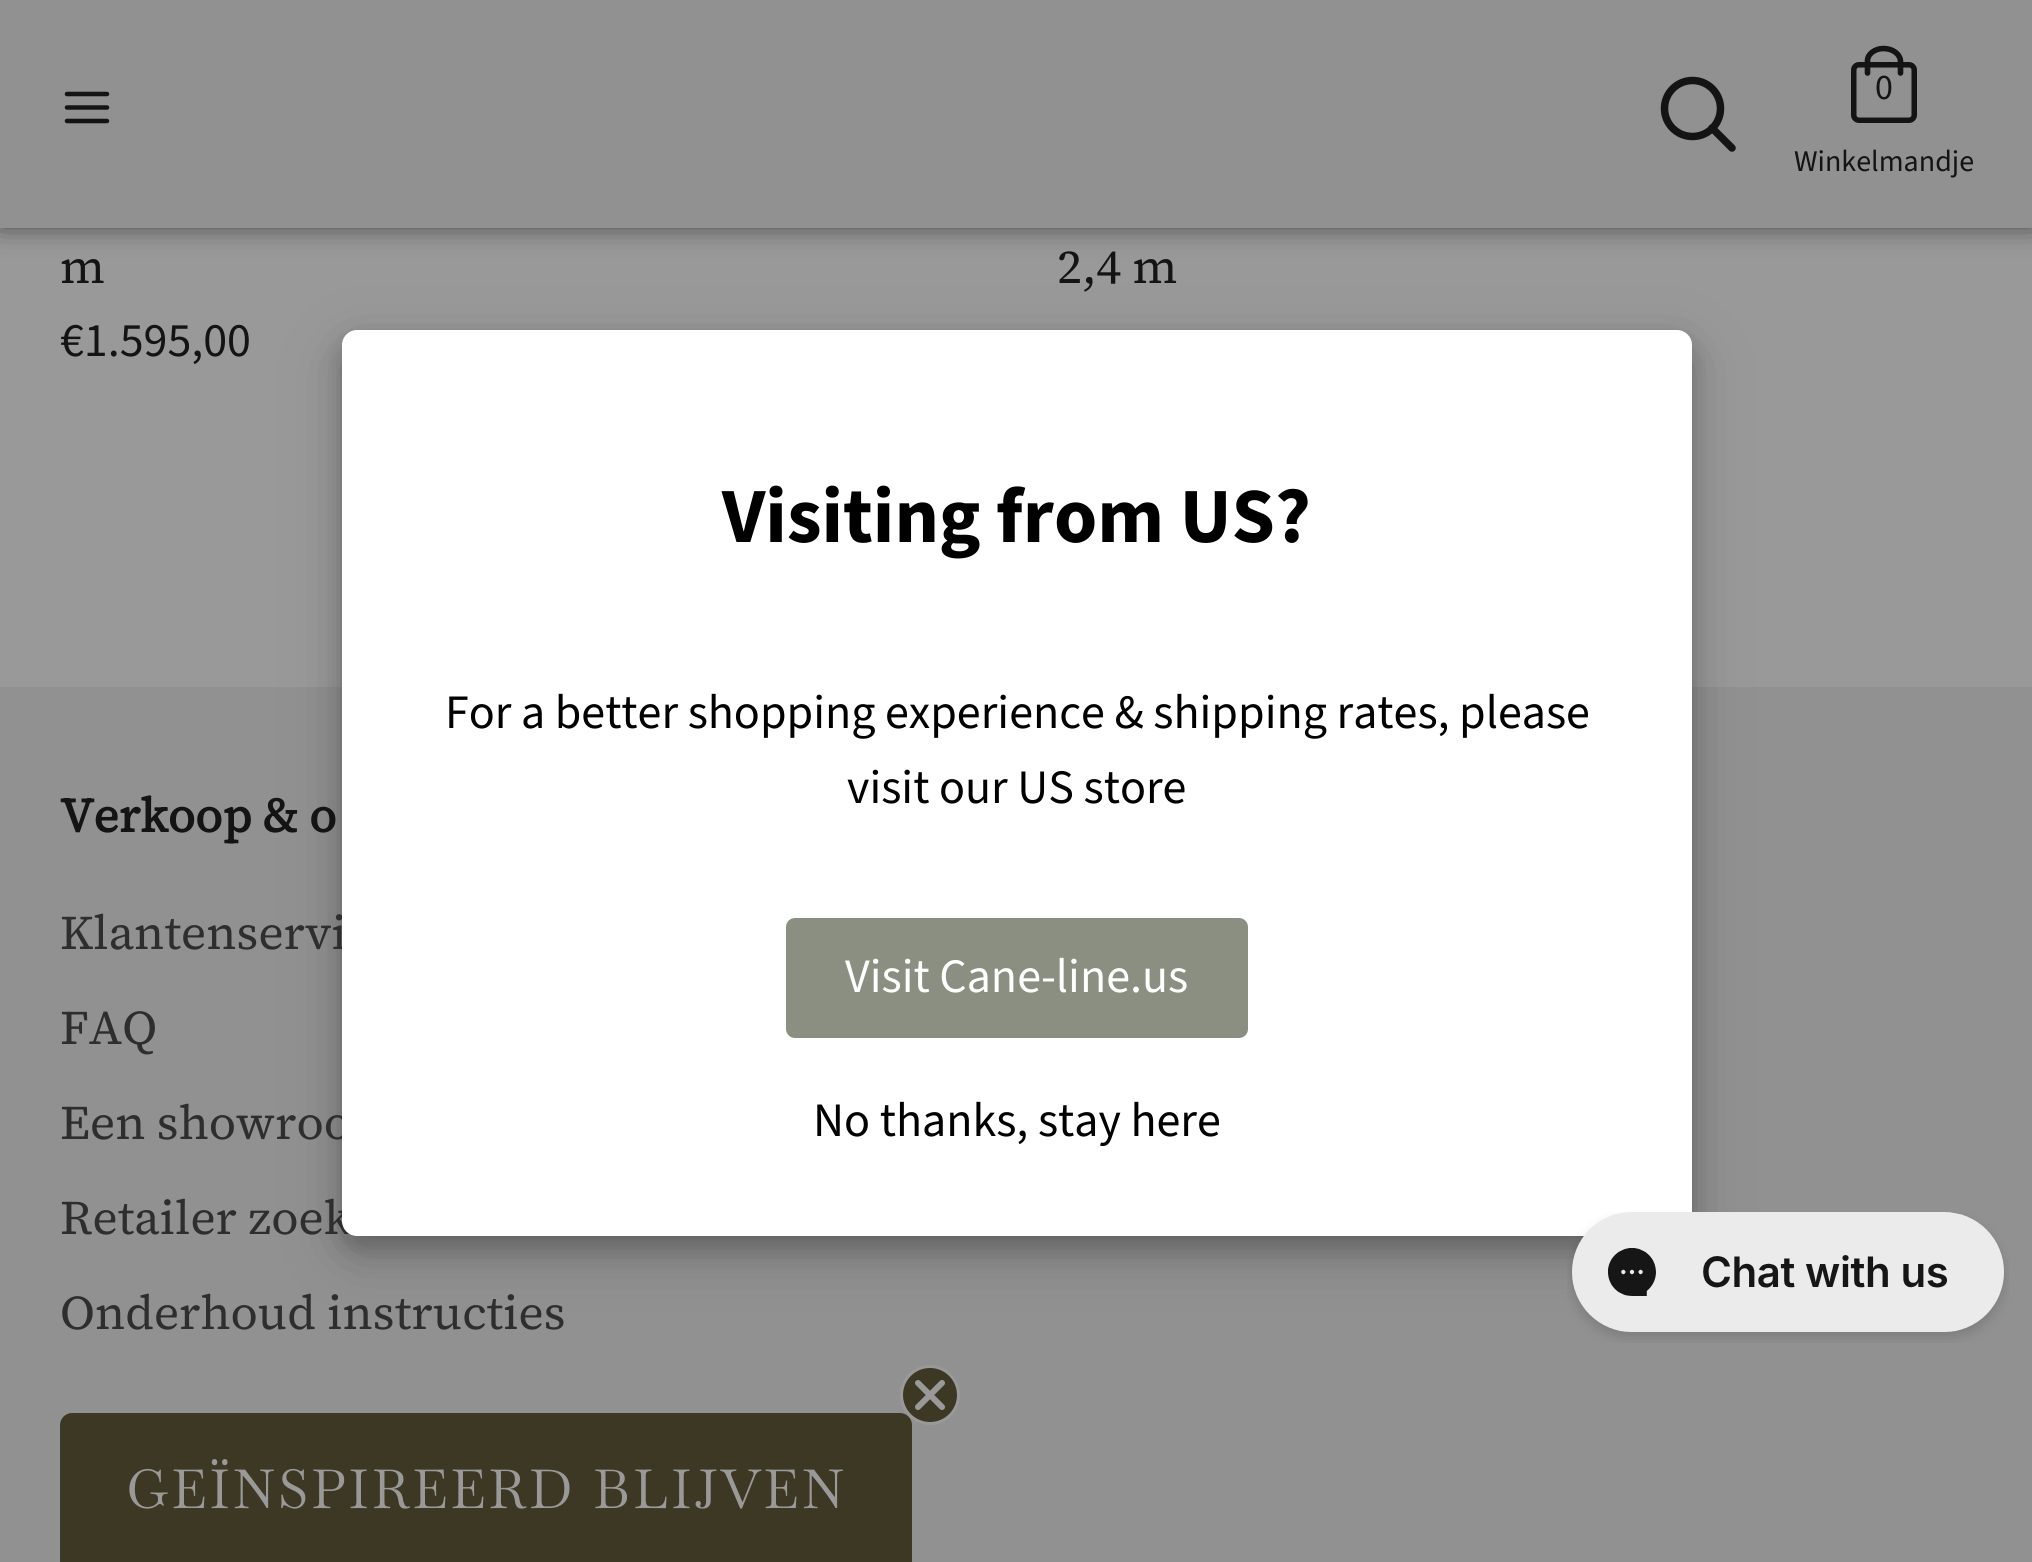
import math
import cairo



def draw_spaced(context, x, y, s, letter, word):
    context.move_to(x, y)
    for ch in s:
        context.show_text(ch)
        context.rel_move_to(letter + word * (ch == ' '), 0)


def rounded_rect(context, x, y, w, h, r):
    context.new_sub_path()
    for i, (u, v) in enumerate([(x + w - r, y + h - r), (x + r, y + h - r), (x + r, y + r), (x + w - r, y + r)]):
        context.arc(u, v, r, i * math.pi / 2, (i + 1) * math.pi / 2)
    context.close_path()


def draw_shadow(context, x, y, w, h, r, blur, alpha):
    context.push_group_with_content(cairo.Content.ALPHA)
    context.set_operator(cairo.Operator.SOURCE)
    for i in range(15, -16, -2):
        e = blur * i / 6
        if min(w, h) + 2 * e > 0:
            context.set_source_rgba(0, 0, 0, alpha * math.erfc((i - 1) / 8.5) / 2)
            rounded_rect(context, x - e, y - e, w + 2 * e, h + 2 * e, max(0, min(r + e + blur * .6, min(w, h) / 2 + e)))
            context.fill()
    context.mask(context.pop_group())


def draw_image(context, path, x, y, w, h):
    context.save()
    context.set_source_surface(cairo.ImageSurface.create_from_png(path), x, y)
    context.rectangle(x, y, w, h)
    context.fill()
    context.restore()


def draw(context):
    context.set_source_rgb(153 / 255, 153 / 255, 153 / 255)
    context.paint()
    context.set_source_rgb(0, 0, 0)
    draw_shadow(context, 0, -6, 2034, 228, 0, 15, 0.75)
    context.set_source_rgb(145 / 255, 145 / 255, 145 / 255)
    context.rectangle(0, 0, 2032, 228)
    context.fill()
    context.new_path()
    context.move_to(67, 107.5)
    context.line_to(107, 107.5)
    context.move_to(67, 94)
    context.line_to(107, 94)
    context.move_to(67, 121)
    context.line_to(107, 121)
    context.set_source_rgb(20 / 255, 20 / 255, 20 / 255)
    context.set_line_width(4.5)
    context.set_line_cap(cairo.LineCap.ROUND)
    context.stroke()
    context.arc(1692.5, 108.5, 28, 0, 2 * math.pi)
    context.set_line_width(7.5)
    context.set_line_cap(cairo.LineCap.BUTT)
    context.stroke()
    context.new_path()
    context.move_to(1732, 148)
    context.line_to(1712, 128)
    context.set_line_cap(cairo.LineCap.ROUND)
    context.stroke()
    rounded_rect(context, 1853.75, 64.75, 60.5, 55.5, 5.25)
    context.set_line_width(5.5)
    context.set_line_cap(cairo.LineCap.BUTT)
    context.stroke()
    context.new_path()
    context.move_to(1867.5, 73)
    context.line_to(1867.5, 61.5)
    context.curve_to(1867, 54.5, 1874.5, 48.5, 1883.5, 48.5)
    context.curve_to(1893, 48.5, 1900.5, 54.5, 1900.5, 61.5)
    context.line_to(1900.5, 73)
    context.set_line_width(5.6)
    context.set_line_cap(cairo.LineCap.ROUND)
    context.stroke()
    context.set_source_rgb(145 / 255, 145 / 255, 145 / 255)
    context.rectangle(0, 687, 2032, 875)
    context.fill()
    context.set_source_rgb(0, 0, 0)
    draw_shadow(context, 342, 348, 1350, 906, 15, 30, 0.19)
    draw_shadow(context, 342, 342, 1350, 906, 15, 12, 0.2)
    context.set_source_rgb(60 / 255, 56 / 255, 35 / 255)
    context.new_path()
    context.move_to(72, 1413)
    context.line_to(900, 1413)
    context.curve_to(906.5, 1413, 912, 1418.5, 912, 1425)
    context.line_to(912, 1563)
    context.line_to(60, 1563)
    context.line_to(60, 1425)
    context.curve_to(60, 1418.5, 65.5, 1413, 72, 1413)
    context.close_path()
    context.fill()
    context.arc(930, 1395, 28.5, 0, 2 * math.pi)
    context.fill_preserve()
    context.set_source_rgb(153 / 255, 153 / 255, 153 / 255)
    context.set_line_width(3)
    context.set_line_cap(cairo.LineCap.BUTT)
    context.stroke()
    context.new_path()
    context.move_to(918, 1383)
    context.line_to(942, 1407)
    context.move_to(918, 1407)
    context.line_to(942, 1383)
    context.close_path()
    context.set_line_width(6)
    context.set_line_cap(cairo.LineCap.ROUND)
    context.set_line_join(cairo.LineJoin.ROUND)
    context.stroke()
    context.select_font_face("Source Sans Pro")
    context.set_font_size(36)
    context.set_source_rgb(20 / 255, 20 / 255, 20 / 255)
    context.move_to(1875, 99)
    context.show_text("0")
    context.set_font_size(30)
    context.move_to(1794, 171)
    context.show_text("Winkelmandje")
    context.select_font_face("Source Serif 4")
    context.set_font_size(48)
    context.move_to(60, 283)
    context.show_text("m")
    context.select_font_face("Source Sans Pro")
    context.move_to(60, 356)
    context.show_text("€1.595,00")
    context.select_font_face("Source Serif 4")
    context.move_to(1057, 283)
    context.show_text("2,4 m")
    context.select_font_face("Source Serif 4", cairo.FontSlant.NORMAL, cairo.FontWeight.BOLD)
    context.move_to(60, 832)
    context.show_text("Verkoop & o")
    context.select_font_face("Source Serif 4")
    context.set_source_rgb(46 / 255, 46 / 255, 46 / 255)
    context.move_to(60, 949)
    context.show_text("Klantenservi")
    context.move_to(60, 1044)
    context.show_text("FAQ")
    context.move_to(60, 1139)
    context.show_text("Een showroo")
    context.move_to(60, 1234)
    context.show_text("Retailer zoek")
    context.move_to(60, 1329)
    context.show_text("Onderhoud instructies")
    context.set_source_rgb(1, 1, 1)
    rounded_rect(context, 342, 330, 1350, 906, 15)
    context.fill()
    context.select_font_face("Source Sans Pro", cairo.FontSlant.NORMAL, cairo.FontWeight.BOLD)
    context.set_font_size(78)
    context.set_source_rgb(0, 0, 0)
    context.move_to(722, 542)
    context.show_text("Visiting from US?")
    context.select_font_face("Source Sans Pro")
    context.set_font_size(48)
    context.move_to(445, 728)
    context.show_text("For a better shopping experience & shipping rates, please")
    context.move_to(847, 803)
    context.show_text("visit our US store")
    context.set_source_rgb(138 / 255, 143 / 255, 129 / 255)
    rounded_rect(context, 786, 918, 462, 120, 9)
    context.fill()
    context.set_source_rgb(1, 1, 1)
    context.move_to(845, 992)
    context.show_text("Visit Cane-line.us")
    context.set_source_rgb(0, 0, 0)
    context.move_to(813, 1136)
    context.show_text("No thanks, stay here")
    draw_image(context, "images/1.png", 1567, 1212, 442, 131)
    context.select_font_face("Baskervville")
    context.set_font_size(54)
    context.set_source_rgb(153 / 255, 153 / 255, 153 / 255)
    draw_spaced(context, 126, 1508, "GEÏNSPIREERD BLIJVEN", 3, 0)


surface = cairo.ImageSurface(cairo.Format.RGB24, 2032, 1562)
context = cairo.Context(surface)
options = cairo.FontOptions()
options.set_hint_metrics(cairo.HintMetrics.OFF)
options.set_hint_style(cairo.HintStyle.NONE)
context.set_font_options(options)
context.set_miter_limit(4)
draw(context)
surface.write_to_png("out.png")
